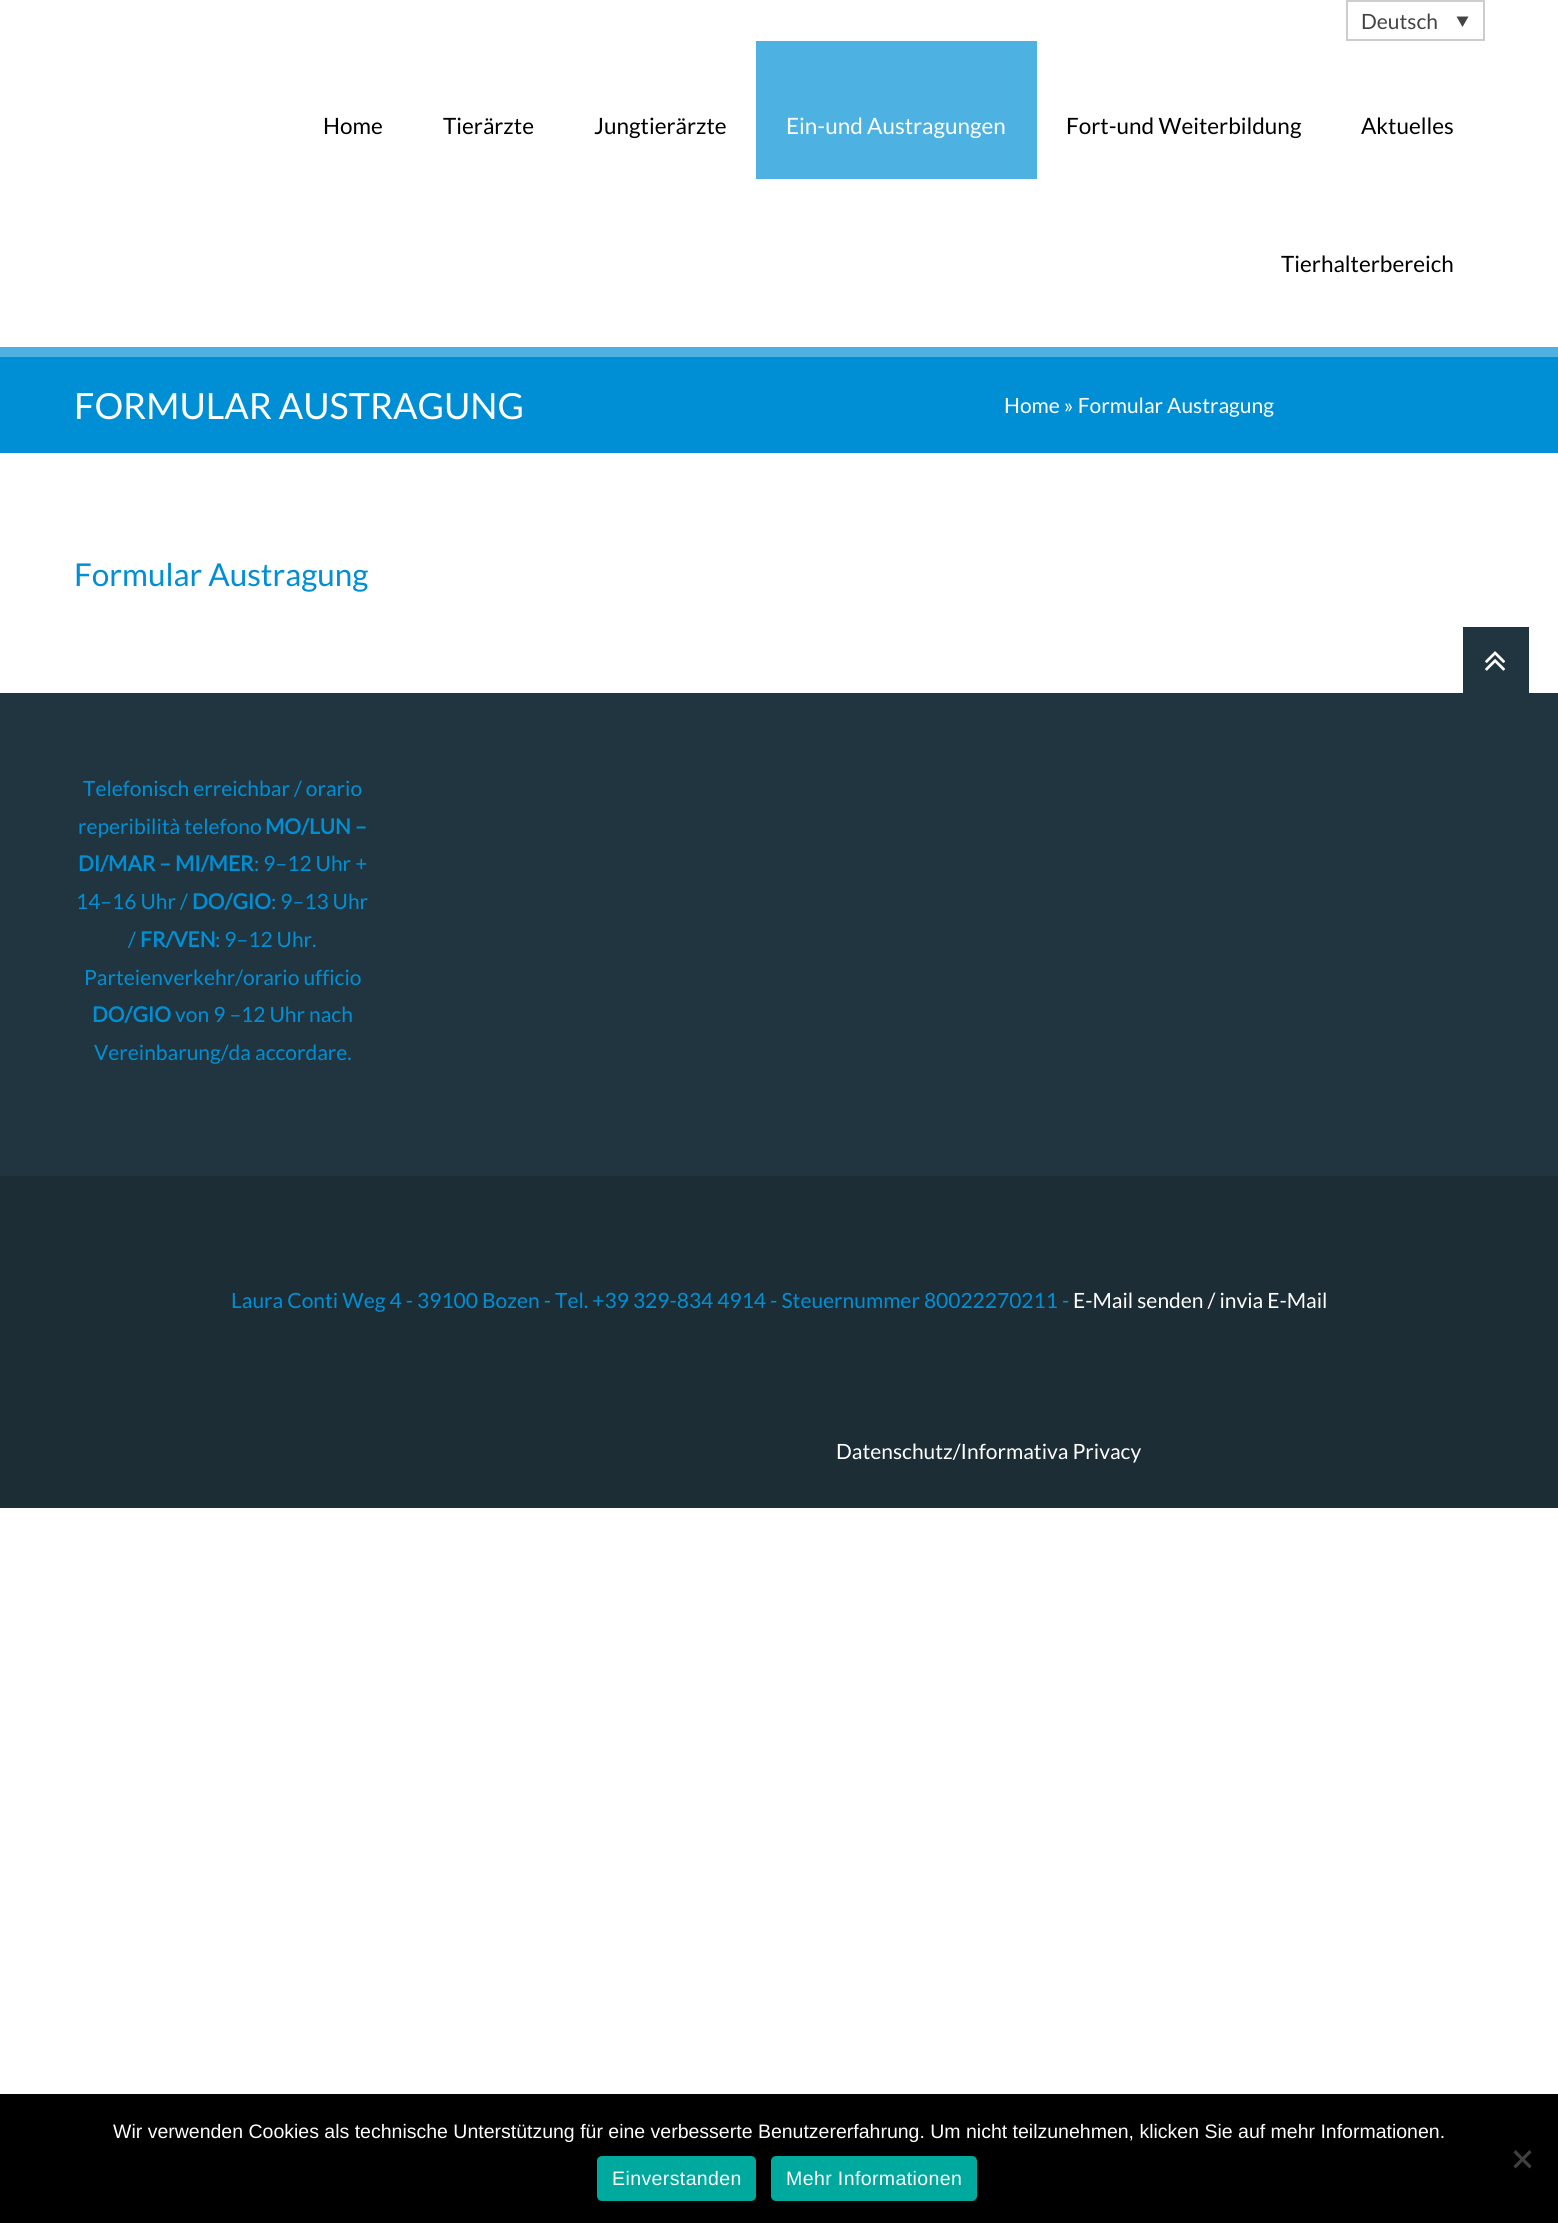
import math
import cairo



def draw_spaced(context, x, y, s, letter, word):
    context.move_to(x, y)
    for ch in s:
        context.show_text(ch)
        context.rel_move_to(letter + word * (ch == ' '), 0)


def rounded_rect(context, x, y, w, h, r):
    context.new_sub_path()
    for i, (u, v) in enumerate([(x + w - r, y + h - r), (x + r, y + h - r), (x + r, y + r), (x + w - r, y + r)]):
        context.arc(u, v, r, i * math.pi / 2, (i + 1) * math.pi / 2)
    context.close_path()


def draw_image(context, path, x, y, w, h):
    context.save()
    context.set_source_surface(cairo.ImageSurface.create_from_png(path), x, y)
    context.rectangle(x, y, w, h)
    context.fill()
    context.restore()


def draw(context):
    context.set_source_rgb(1, 1, 1)
    context.paint()
    context.rectangle(1347, 1, 137, 39)
    context.set_source_rgb(205 / 255, 205 / 255, 205 / 255)
    context.stroke()
    context.set_source_rgb(68 / 255, 68 / 255, 68 / 255)
    context.new_path()
    context.move_to(1456.5, 16.5)
    context.line_to(1468.5, 16.5)
    context.line_to(1462.5, 27)
    context.close_path()
    context.fill()
    context.set_source_rgb(77 / 255, 177 / 255, 226 / 255)
    context.rectangle(756, 41, 281, 138)
    context.fill()
    context.set_source_rgb(0, 143 / 255, 213 / 255)
    context.rectangle(0, 357, 1558, 96)
    context.fill()
    context.set_source_rgb(77 / 255, 177 / 255, 226 / 255)
    context.rectangle(0, 347, 1558, 10)
    context.fill()
    context.set_source_rgb(33 / 255, 53 / 255, 64 / 255)
    context.rectangle(0, 693, 1558, 483)
    context.fill()
    context.rectangle(1463, 627, 66, 66)
    context.fill()
    draw_image(context, "images/1.png", 1485, 651, 21, 20)
    context.set_source_rgb(28 / 255, 45 / 255, 54 / 255)
    context.rectangle(0, 1176, 1558, 332)
    context.fill()
    context.set_source_rgb(0, 0, 0)
    context.rectangle(0, 2094, 1558, 129)
    context.fill()
    context.set_source_rgb(64 / 255, 64 / 255, 64 / 255)
    context.new_path()
    context.move_to(1529.5, 2150)
    context.line_to(1531.5, 2152.5)
    context.line_to(1515.5, 2168.5)
    context.line_to(1513.5, 2166)
    context.close_path()
    context.fill()
    context.new_path()
    context.move_to(1513.5, 2152.5)
    context.line_to(1515.5, 2150)
    context.line_to(1531.5, 2166)
    context.line_to(1529.5, 2168.5)
    context.close_path()
    context.fill()
    context.set_source_rgb(0, 169 / 255, 157 / 255)
    rounded_rect(context, 597, 2156, 159, 45, 5)
    context.fill()
    rounded_rect(context, 771, 2156, 206, 45, 5)
    context.fill()
    context.select_font_face("Lato")
    context.set_font_size(21)
    context.set_source_rgb(68 / 255, 68 / 255, 68 / 255)
    context.move_to(1361, 29)
    context.show_text("Deutsch")
    context.set_font_size(22.5)
    context.set_source_rgb(0, 0, 0)
    context.move_to(323, 134)
    context.show_text("Home")
    context.move_to(443, 134)
    context.show_text("Tierärzte")
    context.move_to(594, 134)
    context.show_text("Jungtierärzte")
    context.set_source_rgb(1, 1, 1)
    context.move_to(786, 134)
    context.show_text("Ein-und Austragungen")
    context.set_source_rgb(0, 0, 0)
    context.move_to(1066, 134)
    context.show_text("Fort-und Weiterbildung")
    context.move_to(1361, 134)
    context.show_text("Aktuelles")
    context.move_to(1281, 272)
    context.show_text("Tierhalterbereich")
    context.set_font_size(36)
    context.set_source_rgb(1, 1, 1)
    context.move_to(74, 419)
    context.show_text("FORMULAR AUSTRAGUNG")
    context.set_font_size(21)
    context.move_to(1004, 413)
    context.show_text("Home » Formular Austragung")
    context.set_font_size(31.5)
    context.set_source_rgb(0, 143 / 255, 213 / 255)
    context.move_to(74, 586)
    context.show_text("Formular Austragung")
    context.set_font_size(21)
    context.move_to(83, 796)
    context.show_text("Telefonisch erreichbar / orario")
    context.move_to(78, 834)
    context.show_text("reperibilità telefono")
    context.select_font_face("Lato", cairo.FontSlant.NORMAL, cairo.FontWeight.BOLD)
    context.move_to(265, 834)
    context.show_text("MO/LUN –")
    context.move_to(78, 871)
    context.show_text("DI/MAR – MI/MER")
    context.select_font_face("Lato")
    context.move_to(254, 871)
    context.show_text(": 9–12 Uhr +")
    context.move_to(76, 909)
    context.show_text("14–16 Uhr /")
    context.select_font_face("Lato", cairo.FontSlant.NORMAL, cairo.FontWeight.BOLD)
    context.move_to(192, 909)
    context.show_text("DO/GIO")
    context.select_font_face("Lato")
    context.move_to(271, 909)
    context.show_text(": 9–13 Uhr")
    context.move_to(128, 947)
    context.show_text("/")
    context.select_font_face("Lato", cairo.FontSlant.NORMAL, cairo.FontWeight.BOLD)
    context.move_to(140, 947)
    context.show_text("FR/VEN")
    context.select_font_face("Lato")
    context.move_to(215, 947)
    context.show_text(": 9–12 Uhr.")
    context.move_to(84, 985)
    context.show_text("Parteienverkehr/orario ufficio")
    context.select_font_face("Lato", cairo.FontSlant.NORMAL, cairo.FontWeight.BOLD)
    context.move_to(92, 1022)
    context.show_text("DO/GIO")
    context.select_font_face("Lato")
    context.move_to(175, 1022)
    context.show_text("von 9 –12 Uhr nach")
    context.move_to(94, 1060)
    context.show_text("Vereinbarung/da accordare.")
    context.move_to(231, 1308)
    context.show_text("Laura Conti Weg 4 - 39100 Bozen - Tel. +39 329-834 4914 - Steuernummer 80022270211 -")
    context.set_source_rgb(1, 1, 1)
    context.move_to(1073, 1308)
    context.show_text("E-Mail senden / invia E-Mail")
    context.move_to(836, 1459)
    context.show_text("Datenschutz/Informativa Privacy")
    context.select_font_face("Liberation Sans")
    context.set_font_size(19.5)
    context.move_to(113, 2138)
    context.show_text("Wir verwenden Cookies als technische Unterstützung für eine verbesserte Benutzererfahrung. Um nicht teilzunehmen, klicken Sie auf mehr Informationen.")
    draw_spaced(context, 612, 2185, "Einverstanden", 0.4, 0)
    draw_spaced(context, 786, 2185, "Mehr Informationen", 0.4, 0)


surface = cairo.ImageSurface(cairo.Format.RGB24, 1558, 2223)
context = cairo.Context(surface)
options = cairo.FontOptions()
options.set_hint_metrics(cairo.HintMetrics.OFF)
options.set_hint_style(cairo.HintStyle.NONE)
context.set_font_options(options)
context.set_miter_limit(4)
draw(context)
surface.write_to_png("out.png")
